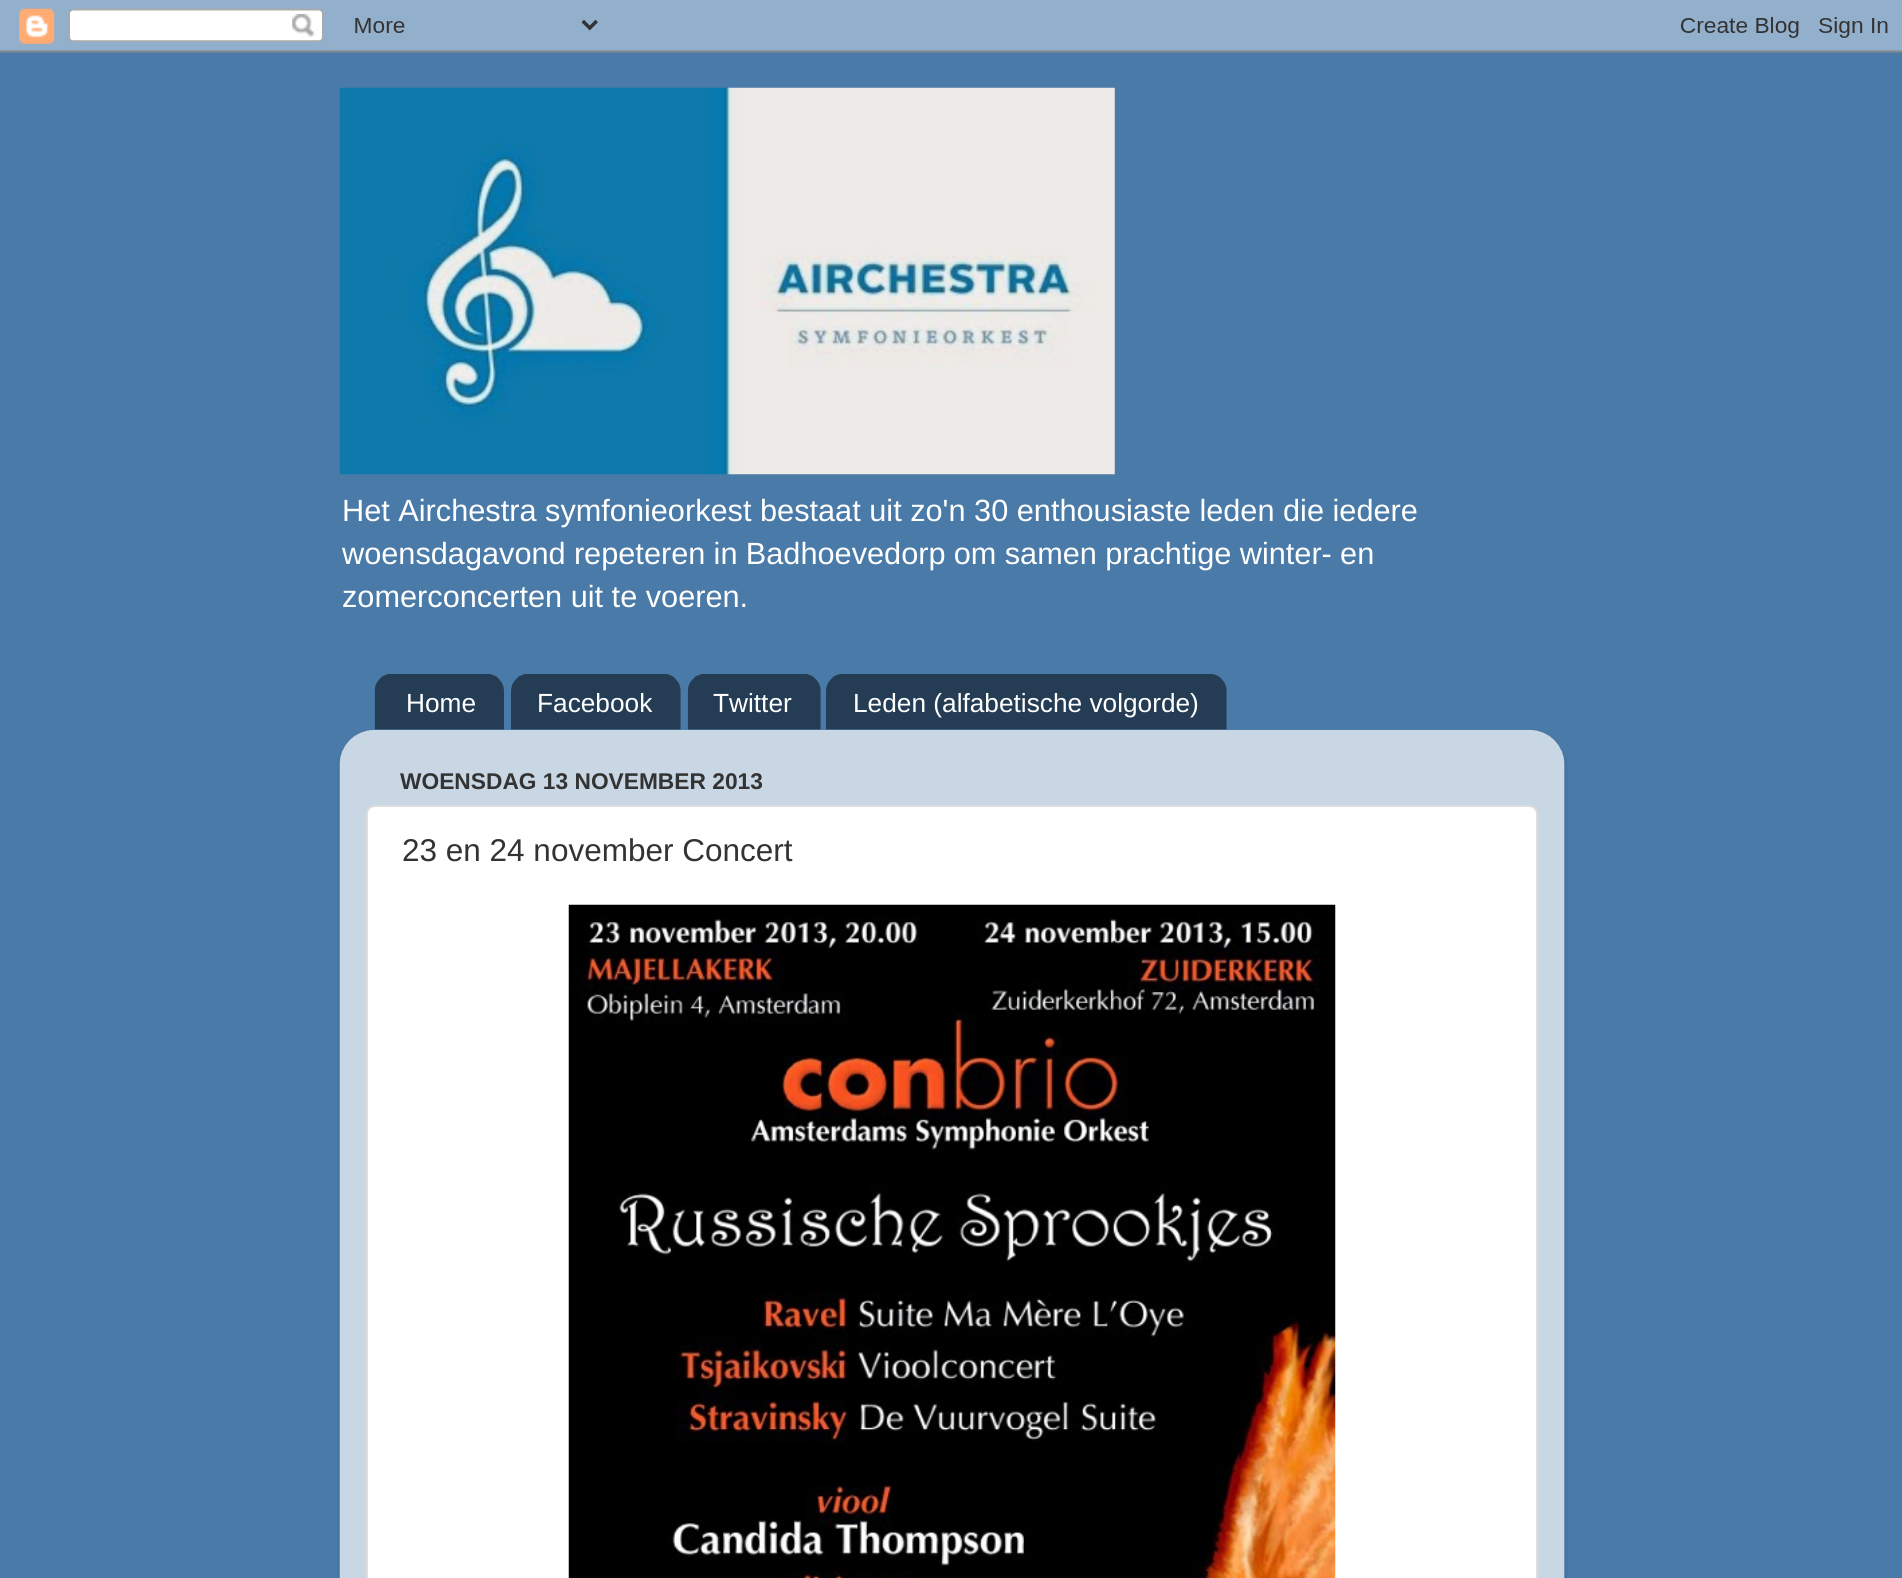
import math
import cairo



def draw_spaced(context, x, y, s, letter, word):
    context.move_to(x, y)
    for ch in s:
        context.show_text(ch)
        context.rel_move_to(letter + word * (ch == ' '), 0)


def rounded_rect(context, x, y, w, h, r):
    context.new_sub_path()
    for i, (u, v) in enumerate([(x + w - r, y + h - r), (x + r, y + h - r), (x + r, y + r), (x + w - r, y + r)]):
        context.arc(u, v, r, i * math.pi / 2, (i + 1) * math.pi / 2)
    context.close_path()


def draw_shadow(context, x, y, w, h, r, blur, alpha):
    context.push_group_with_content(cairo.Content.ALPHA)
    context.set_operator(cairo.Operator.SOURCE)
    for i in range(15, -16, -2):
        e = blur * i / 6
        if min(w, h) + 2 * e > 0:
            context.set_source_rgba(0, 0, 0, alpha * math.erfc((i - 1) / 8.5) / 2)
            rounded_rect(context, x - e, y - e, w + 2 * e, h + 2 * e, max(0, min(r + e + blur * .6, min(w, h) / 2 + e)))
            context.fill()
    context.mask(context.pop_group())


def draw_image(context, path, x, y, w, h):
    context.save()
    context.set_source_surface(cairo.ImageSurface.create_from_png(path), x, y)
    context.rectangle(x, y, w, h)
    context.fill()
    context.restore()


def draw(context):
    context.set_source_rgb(74 / 255, 122 / 255, 168 / 255)
    context.paint()
    draw_image(context, "images/1.png", 0, 0, 1902, 53)
    draw_image(context, "images/2.png", 339, 87, 776, 388)
    draw_image(context, "images/3.png", 374, 674, 130, 56)
    draw_image(context, "images/4.png", 511, 674, 170, 56)
    draw_image(context, "images/5.png", 687, 674, 134, 56)
    draw_image(context, "images/6.png", 826, 674, 401, 56)
    context.save()
    context.set_fill_rule(cairo.FillRule.EVEN_ODD)
    context.new_path()
    context.move_to(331, 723)
    context.line_to(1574, 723)
    context.line_to(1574, 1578)
    context.line_to(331, 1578)
    context.close_path()
    context.move_to(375, 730)
    context.line_to(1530, 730)
    context.curve_to(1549.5, 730, 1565, 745.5, 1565, 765)
    context.line_to(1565, 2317)
    context.line_to(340, 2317)
    context.line_to(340, 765)
    context.curve_to(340, 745.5, 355.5, 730, 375, 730)
    context.close_path()
    context.clip()
    context.set_source_rgb(0, 0, 0)
    draw_shadow(context, 340, 732, 1225, 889, 35, 2.5, 0.15)
    context.restore()
    draw_image(context, "images/7.png", 339, 729, 1226, 849)
    context.set_source_rgb(1, 1, 1)
    rounded_rect(context, 367, 806, 1170, 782, 8)
    context.fill_preserve()
    context.set_source_rgb(221 / 255, 221 / 255, 221 / 255)
    context.stroke()
    draw_image(context, "images/8.png", 568, 904, 768, 674)
    context.select_font_face("Liberation Sans")
    context.set_font_size(30.7)
    context.set_source_rgb(1, 1, 1)
    context.move_to(342, 521)
    context.show_text("Het Airchestra symfonieorkest bestaat uit zo'n 30 enthousiaste leden die iedere")
    draw_spaced(context, 342, 564, "woensdagavond repeteren in Badhoevedorp om samen prachtige winter- en", 0, -0.25)
    context.move_to(342, 607)
    context.show_text("zomerconcerten uit te voeren.")
    context.set_font_size(26.25)
    context.move_to(406, 712)
    context.show_text("Home")
    context.move_to(537, 712)
    context.show_text("Facebook")
    context.move_to(713, 712)
    context.show_text("Twitter")
    context.move_to(853, 712)
    context.show_text("Leden (alfabetische volgorde)")
    context.select_font_face("Liberation Sans", cairo.FontSlant.NORMAL, cairo.FontWeight.BOLD)
    context.set_font_size(22.75)
    context.set_source_rgb(51 / 255, 51 / 255, 51 / 255)
    context.move_to(400, 789)
    context.show_text("WOENSDAG 13 NOVEMBER 2013")
    context.select_font_face("Liberation Sans")
    context.set_font_size(31.5)
    context.move_to(402, 861)
    context.show_text("23 en 24 november Concert")


surface = cairo.ImageSurface(cairo.Format.RGB24, 1902, 1578)
context = cairo.Context(surface)
options = cairo.FontOptions()
options.set_hint_metrics(cairo.HintMetrics.OFF)
options.set_hint_style(cairo.HintStyle.NONE)
context.set_font_options(options)
context.set_miter_limit(4)
draw(context)
surface.write_to_png("out.png")
